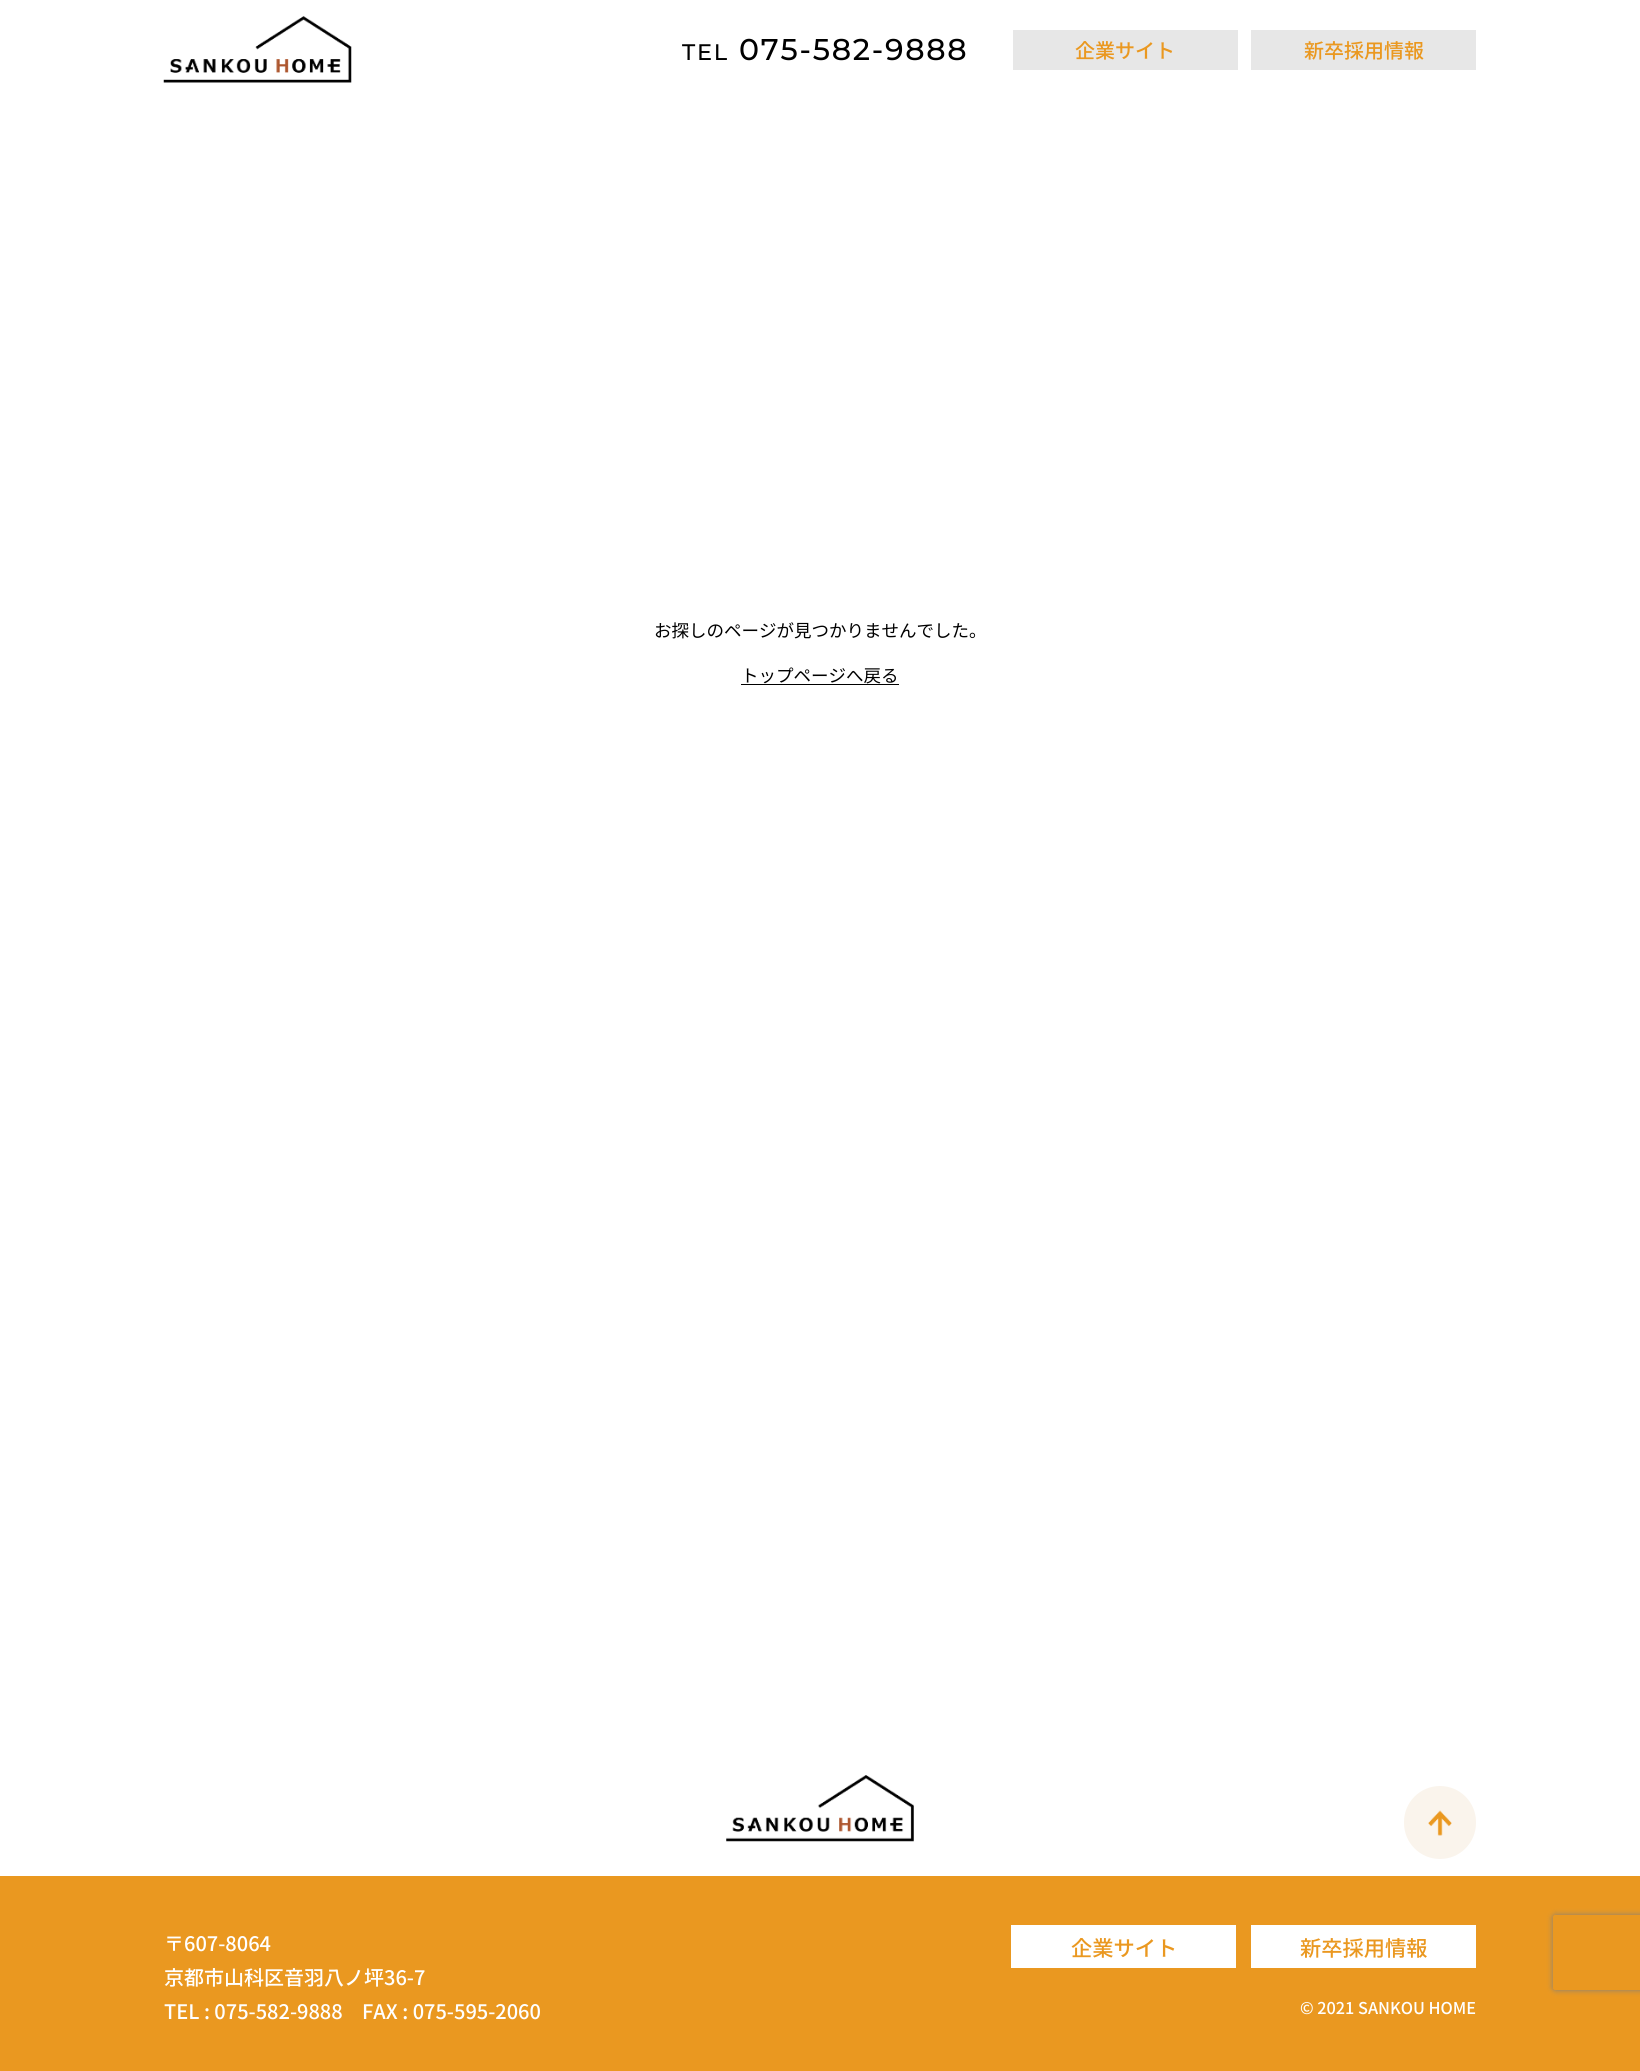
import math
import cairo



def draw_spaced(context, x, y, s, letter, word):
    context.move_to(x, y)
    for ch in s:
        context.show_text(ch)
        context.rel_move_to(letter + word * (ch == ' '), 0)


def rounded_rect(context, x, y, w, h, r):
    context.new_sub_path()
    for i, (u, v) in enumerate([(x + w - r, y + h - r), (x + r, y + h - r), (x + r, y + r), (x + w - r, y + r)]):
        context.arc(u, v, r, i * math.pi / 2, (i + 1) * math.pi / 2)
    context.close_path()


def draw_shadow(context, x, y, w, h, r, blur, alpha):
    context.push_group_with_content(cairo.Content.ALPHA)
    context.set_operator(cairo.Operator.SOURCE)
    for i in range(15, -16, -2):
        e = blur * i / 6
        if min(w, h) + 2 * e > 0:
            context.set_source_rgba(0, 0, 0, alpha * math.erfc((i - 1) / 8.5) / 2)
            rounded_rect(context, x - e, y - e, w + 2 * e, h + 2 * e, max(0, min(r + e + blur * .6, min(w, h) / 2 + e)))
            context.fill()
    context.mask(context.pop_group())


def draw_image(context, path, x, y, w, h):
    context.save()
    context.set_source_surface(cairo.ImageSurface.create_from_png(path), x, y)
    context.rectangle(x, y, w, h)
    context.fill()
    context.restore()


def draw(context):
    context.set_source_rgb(1, 1, 1)
    context.paint()
    draw_image(context, "images/1.png", 163, 16, 189, 67)
    context.set_source_rgb(231 / 255, 231 / 255, 231 / 255)
    context.rectangle(1013, 30, 225, 40)
    context.fill()
    context.rectangle(1251, 30, 225, 40)
    context.fill()
    context.set_source_rgb(0, 0, 0)
    context.rectangle(741, 684, 158, 1)
    context.fill()
    draw_image(context, "images/2.png", 726, 1775, 188, 67)
    context.set_source_rgb(250 / 255, 244 / 255, 236 / 255)
    rounded_rect(context, 1404, 1786, 72, 73, 36)
    context.fill()
    draw_image(context, "images/3.png", 1428, 1810, 24, 26)
    context.set_source_rgb(234 / 255, 152 / 255, 32 / 255)
    context.rectangle(0, 1876, 1640, 195)
    context.fill()
    context.set_source_rgb(1, 1, 1)
    context.rectangle(1011, 1925, 225, 43)
    context.fill()
    context.rectangle(1251, 1925, 225, 43)
    context.fill()
    context.save()
    context.set_fill_rule(cairo.FillRule.EVEN_ODD)
    context.new_path()
    context.move_to(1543, 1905)
    context.line_to(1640, 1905)
    context.line_to(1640, 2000)
    context.line_to(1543, 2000)
    context.close_path()
    context.move_to(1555.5, 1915)
    context.line_to(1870.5, 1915)
    context.curve_to(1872, 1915, 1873, 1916, 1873, 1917.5)
    context.line_to(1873, 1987.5)
    context.curve_to(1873, 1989, 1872, 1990, 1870.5, 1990)
    context.line_to(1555.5, 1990)
    context.curve_to(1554, 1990, 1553, 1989, 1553, 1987.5)
    context.line_to(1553, 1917.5)
    context.curve_to(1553, 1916, 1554, 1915, 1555.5, 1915)
    context.close_path()
    context.clip()
    context.set_source_rgb(128 / 255, 128 / 255, 128 / 255)
    draw_shadow(context, 1553, 1915, 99, 75, 2.5, 3, 1)
    context.restore()
    context.select_font_face("Montserrat Medium")
    context.set_font_size(22.5)
    context.set_source_rgb(0, 0, 0)
    draw_spaced(context, 682, 60, "TEL", 1.75, 0)
    context.set_font_size(30)
    draw_spaced(context, 739, 60, "075-582-9888", 1.75, 0)
    context.select_font_face("Noto Sans JP Medium")
    context.set_font_size(20)
    context.set_source_rgb(234 / 255, 152 / 255, 32 / 255)
    context.move_to(1075, 58)
    context.show_text("企業サイト")
    context.move_to(1304, 58)
    context.show_text("新卒採用情報")
    context.select_font_face("Noto Sans JP")
    context.set_font_size(17.5)
    context.set_source_rgb(0, 0, 0)
    context.move_to(654, 637)
    context.show_text("お探しのページが見つかりませんでした。")
    context.move_to(741, 682)
    context.show_text("トップページへ戻る")
    context.select_font_face("Noto Sans JP Medium")
    context.set_font_size(20)
    context.set_source_rgb(1, 1, 1)
    context.move_to(164, 1951)
    context.show_text("〒607-8064")
    context.move_to(164, 1985)
    context.show_text("京都市山科区音羽八ノ坪36-7")
    context.move_to(164, 2019)
    context.show_text("TEL : 075-582-9888")
    context.move_to(362, 2019)
    context.show_text("FAX : 075-595-2060")
    context.set_font_size(21.25)
    context.set_source_rgb(234 / 255, 152 / 255, 32 / 255)
    context.move_to(1071, 1956)
    context.show_text("企業サイト")
    context.move_to(1300, 1956)
    context.show_text("新卒採用情報")
    context.set_font_size(16.25)
    context.set_source_rgb(1, 1, 1)
    context.move_to(1300, 2014)
    context.show_text("© 2021 SANKOU HOME")


surface = cairo.ImageSurface(cairo.Format.RGB24, 1640, 2071)
context = cairo.Context(surface)
options = cairo.FontOptions()
options.set_hint_metrics(cairo.HintMetrics.OFF)
options.set_hint_style(cairo.HintStyle.NONE)
context.set_font_options(options)
context.set_miter_limit(4)
draw(context)
surface.write_to_png("out.png")
